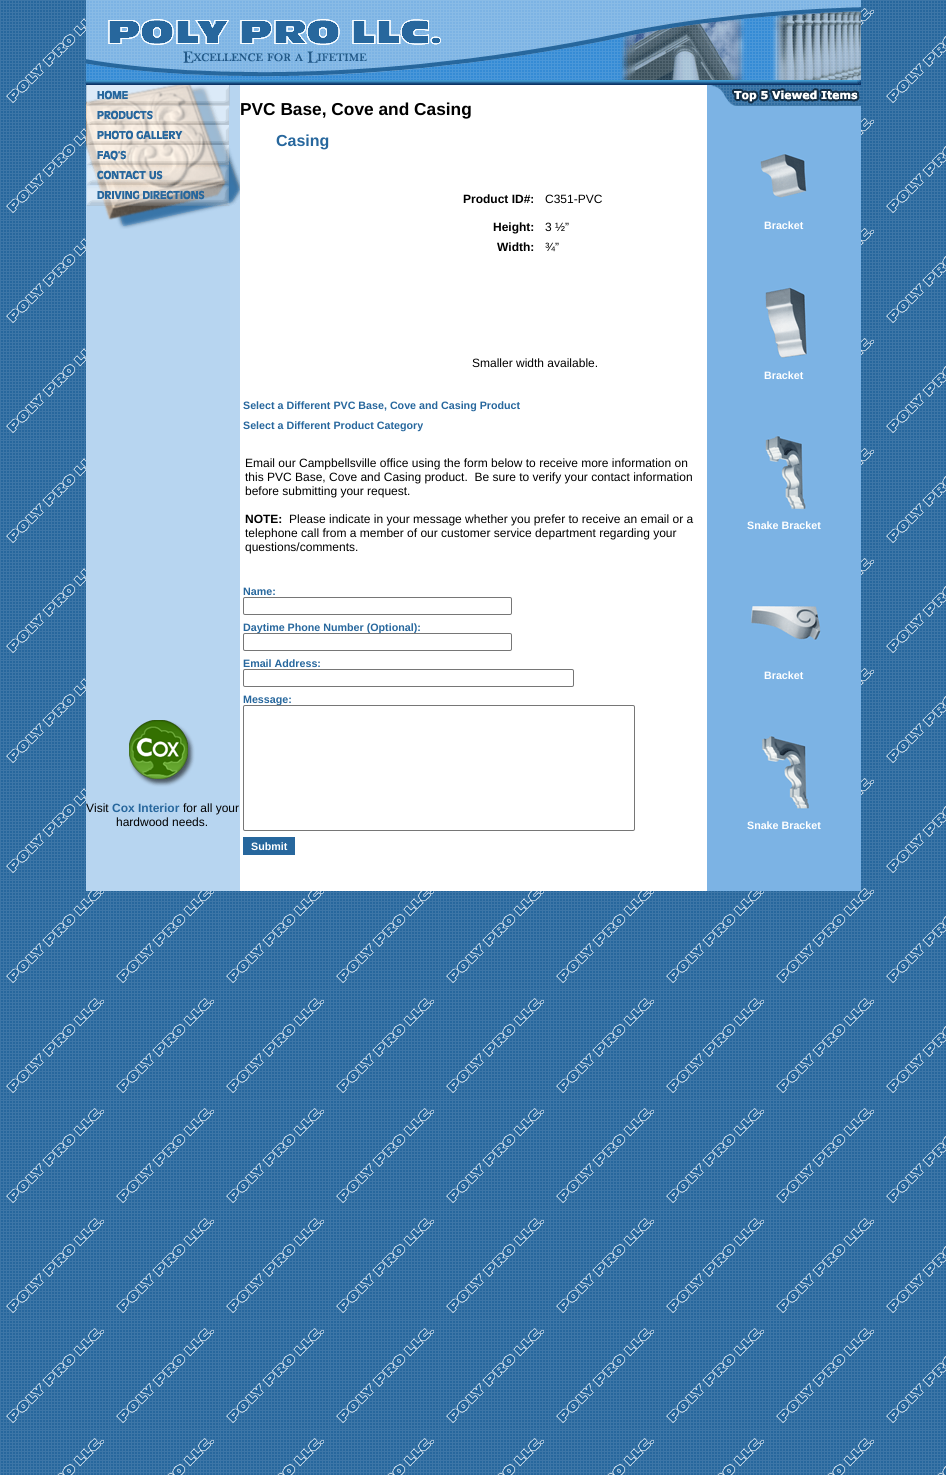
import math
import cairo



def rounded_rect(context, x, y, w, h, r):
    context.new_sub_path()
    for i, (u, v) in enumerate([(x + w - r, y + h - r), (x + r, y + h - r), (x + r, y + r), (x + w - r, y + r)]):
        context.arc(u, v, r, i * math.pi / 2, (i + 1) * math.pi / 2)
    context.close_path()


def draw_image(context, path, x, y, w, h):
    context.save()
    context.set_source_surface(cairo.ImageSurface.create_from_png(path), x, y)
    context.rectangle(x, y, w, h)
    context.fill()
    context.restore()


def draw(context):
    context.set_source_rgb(1, 1, 1)
    context.paint()
    draw_image(context, "images/1.png", 0, 0, 946, 1475)
    draw_image(context, "images/2.png", 86, 0, 775, 85)
    context.set_source_rgb(1, 1, 1)
    context.rectangle(240, 85, 467, 806)
    context.fill()
    context.set_source_rgb(183 / 255, 213 / 255, 240 / 255)
    context.rectangle(86, 85, 154, 806)
    context.fill()
    draw_image(context, "images/3.png", 86, 85, 144, 20)
    draw_image(context, "images/4.png", 86, 105, 144, 20)
    draw_image(context, "images/5.png", 86, 125, 143, 20)
    draw_image(context, "images/6.png", 86, 145, 150, 20)
    draw_image(context, "images/7.png", 87, 165, 153, 20)
    draw_image(context, "images/8.png", 87, 185, 153, 20)
    draw_image(context, "images/9.png", 86, 205, 146, 24)
    draw_image(context, "images/10.png", 129, 720, 66, 67)
    rounded_rect(context, 243.5, 597.5, 268, 17, 1.5)
    context.set_source_rgb(118 / 255, 118 / 255, 118 / 255)
    context.set_line_width(1)
    context.stroke()
    rounded_rect(context, 243.5, 669.5, 330, 17, 1.5)
    context.stroke()
    context.set_source_rgb(39 / 255, 103 / 255, 157 / 255)
    context.rectangle(243, 837, 52, 18)
    context.fill()
    context.set_source_rgb(124 / 255, 179 / 255, 228 / 255)
    context.rectangle(707, 85, 154, 806)
    context.fill()
    draw_image(context, "images/11.png", 711, 85, 150, 21)
    draw_image(context, "images/12.png", 760, 153, 47, 45)
    draw_image(context, "images/13.png", 765, 287, 43, 72)
    draw_image(context, "images/14.png", 765, 435, 42, 75)
    draw_image(context, "images/15.png", 751, 605, 70, 36)
    draw_image(context, "images/16.png", 762, 735, 48, 75)
    context.select_font_face("Liberation Sans")
    context.set_font_size(12)
    context.set_source_rgb(0, 0, 0)
    context.move_to(86, 812)
    context.show_text("Visit")
    context.select_font_face("Liberation Sans", cairo.FontSlant.NORMAL, cairo.FontWeight.BOLD)
    context.set_source_rgb(39 / 255, 103 / 255, 157 / 255)
    context.move_to(112, 812)
    context.show_text("Cox Interior")
    context.select_font_face("Liberation Sans")
    context.set_source_rgb(0, 0, 0)
    context.move_to(183, 812)
    context.show_text("for all your")
    context.move_to(116, 826)
    context.show_text("hardwood needs.")
    context.select_font_face("Liberation Sans", cairo.FontSlant.NORMAL, cairo.FontWeight.BOLD)
    context.set_font_size(17.3)
    context.move_to(240, 115)
    context.show_text("PVC Base, Cove and Casing")
    context.set_font_size(16)
    context.set_source_rgb(39 / 255, 103 / 255, 157 / 255)
    context.move_to(276, 146)
    context.show_text("Casing")
    context.set_font_size(12)
    context.set_source_rgb(0, 0, 0)
    context.move_to(463, 203)
    context.show_text("Product ID#:")
    context.select_font_face("Liberation Sans")
    context.move_to(545, 203)
    context.show_text("C351-PVC")
    context.select_font_face("Liberation Sans", cairo.FontSlant.NORMAL, cairo.FontWeight.BOLD)
    context.move_to(493, 231)
    context.show_text("Height:")
    context.select_font_face("Liberation Sans")
    context.move_to(545, 231)
    context.show_text("3 ½”")
    context.select_font_face("Liberation Sans", cairo.FontSlant.NORMAL, cairo.FontWeight.BOLD)
    context.move_to(497, 251)
    context.show_text("Width:")
    context.select_font_face("Liberation Sans")
    context.move_to(545, 251)
    context.show_text("¾”")
    context.move_to(472, 367)
    context.show_text("Smaller width available.")
    context.select_font_face("Liberation Sans", cairo.FontSlant.NORMAL, cairo.FontWeight.BOLD)
    context.set_font_size(10.7)
    context.set_source_rgb(39 / 255, 103 / 255, 157 / 255)
    context.move_to(243, 409)
    context.show_text("Select a Different PVC Base, Cove and Casing Product")
    context.move_to(243, 429)
    context.show_text("Select a Different Product Category")
    context.select_font_face("Liberation Sans")
    context.set_font_size(12)
    context.set_source_rgb(0, 0, 0)
    context.move_to(245, 467)
    context.show_text("Email our Campbellsville office using the form below to receive more information on")
    context.move_to(245, 481)
    context.show_text("this PVC Base, Cove and Casing product.  Be sure to verify your contact information")
    context.move_to(245, 495)
    context.show_text("before submitting your request.")
    context.select_font_face("Liberation Sans", cairo.FontSlant.NORMAL, cairo.FontWeight.BOLD)
    context.move_to(245, 523)
    context.show_text("NOTE:")
    context.select_font_face("Liberation Sans")
    context.move_to(289, 523)
    context.show_text("Please indicate in your message whether you prefer to receive an email or a")
    context.move_to(245, 537)
    context.show_text("telephone call from a member of our customer service department regarding your")
    context.move_to(245, 551)
    context.show_text("questions/comments.")
    context.select_font_face("Liberation Sans", cairo.FontSlant.NORMAL, cairo.FontWeight.BOLD)
    context.set_font_size(10.7)
    context.set_source_rgb(39 / 255, 103 / 255, 157 / 255)
    context.move_to(243, 595)
    context.show_text("Name:")
    context.move_to(243, 631)
    context.show_text("Daytime Phone Number (Optional):")
    context.set_source_rgb(1, 1, 1)
    rounded_rect(context, 243.5, 633.5, 268, 17, 1.5)
    context.fill_preserve()
    context.set_source_rgb(118 / 255, 118 / 255, 118 / 255)
    context.stroke()
    context.set_source_rgb(39 / 255, 103 / 255, 157 / 255)
    context.move_to(243, 667)
    context.show_text("Email Address:")
    context.move_to(243, 703)
    context.show_text("Message:")
    context.set_source_rgb(1, 1, 1)
    rounded_rect(context, 243.5, 705.5, 391, 125, 1.5)
    context.fill_preserve()
    context.set_source_rgb(118 / 255, 118 / 255, 118 / 255)
    context.stroke()
    context.set_source_rgb(1, 1, 1)
    context.move_to(251, 850)
    context.show_text("Submit")
    context.move_to(764, 229)
    context.show_text("Bracket")
    context.move_to(764, 379)
    context.show_text("Bracket")
    context.move_to(747, 529)
    context.show_text("Snake Bracket")
    context.move_to(764, 679)
    context.show_text("Bracket")
    context.move_to(747, 829)
    context.show_text("Snake Bracket")


surface = cairo.ImageSurface(cairo.Format.RGB24, 946, 1475)
context = cairo.Context(surface)
options = cairo.FontOptions()
options.set_hint_metrics(cairo.HintMetrics.OFF)
options.set_hint_style(cairo.HintStyle.NONE)
context.set_font_options(options)
context.set_miter_limit(4)
draw(context)
surface.write_to_png("out.png")
